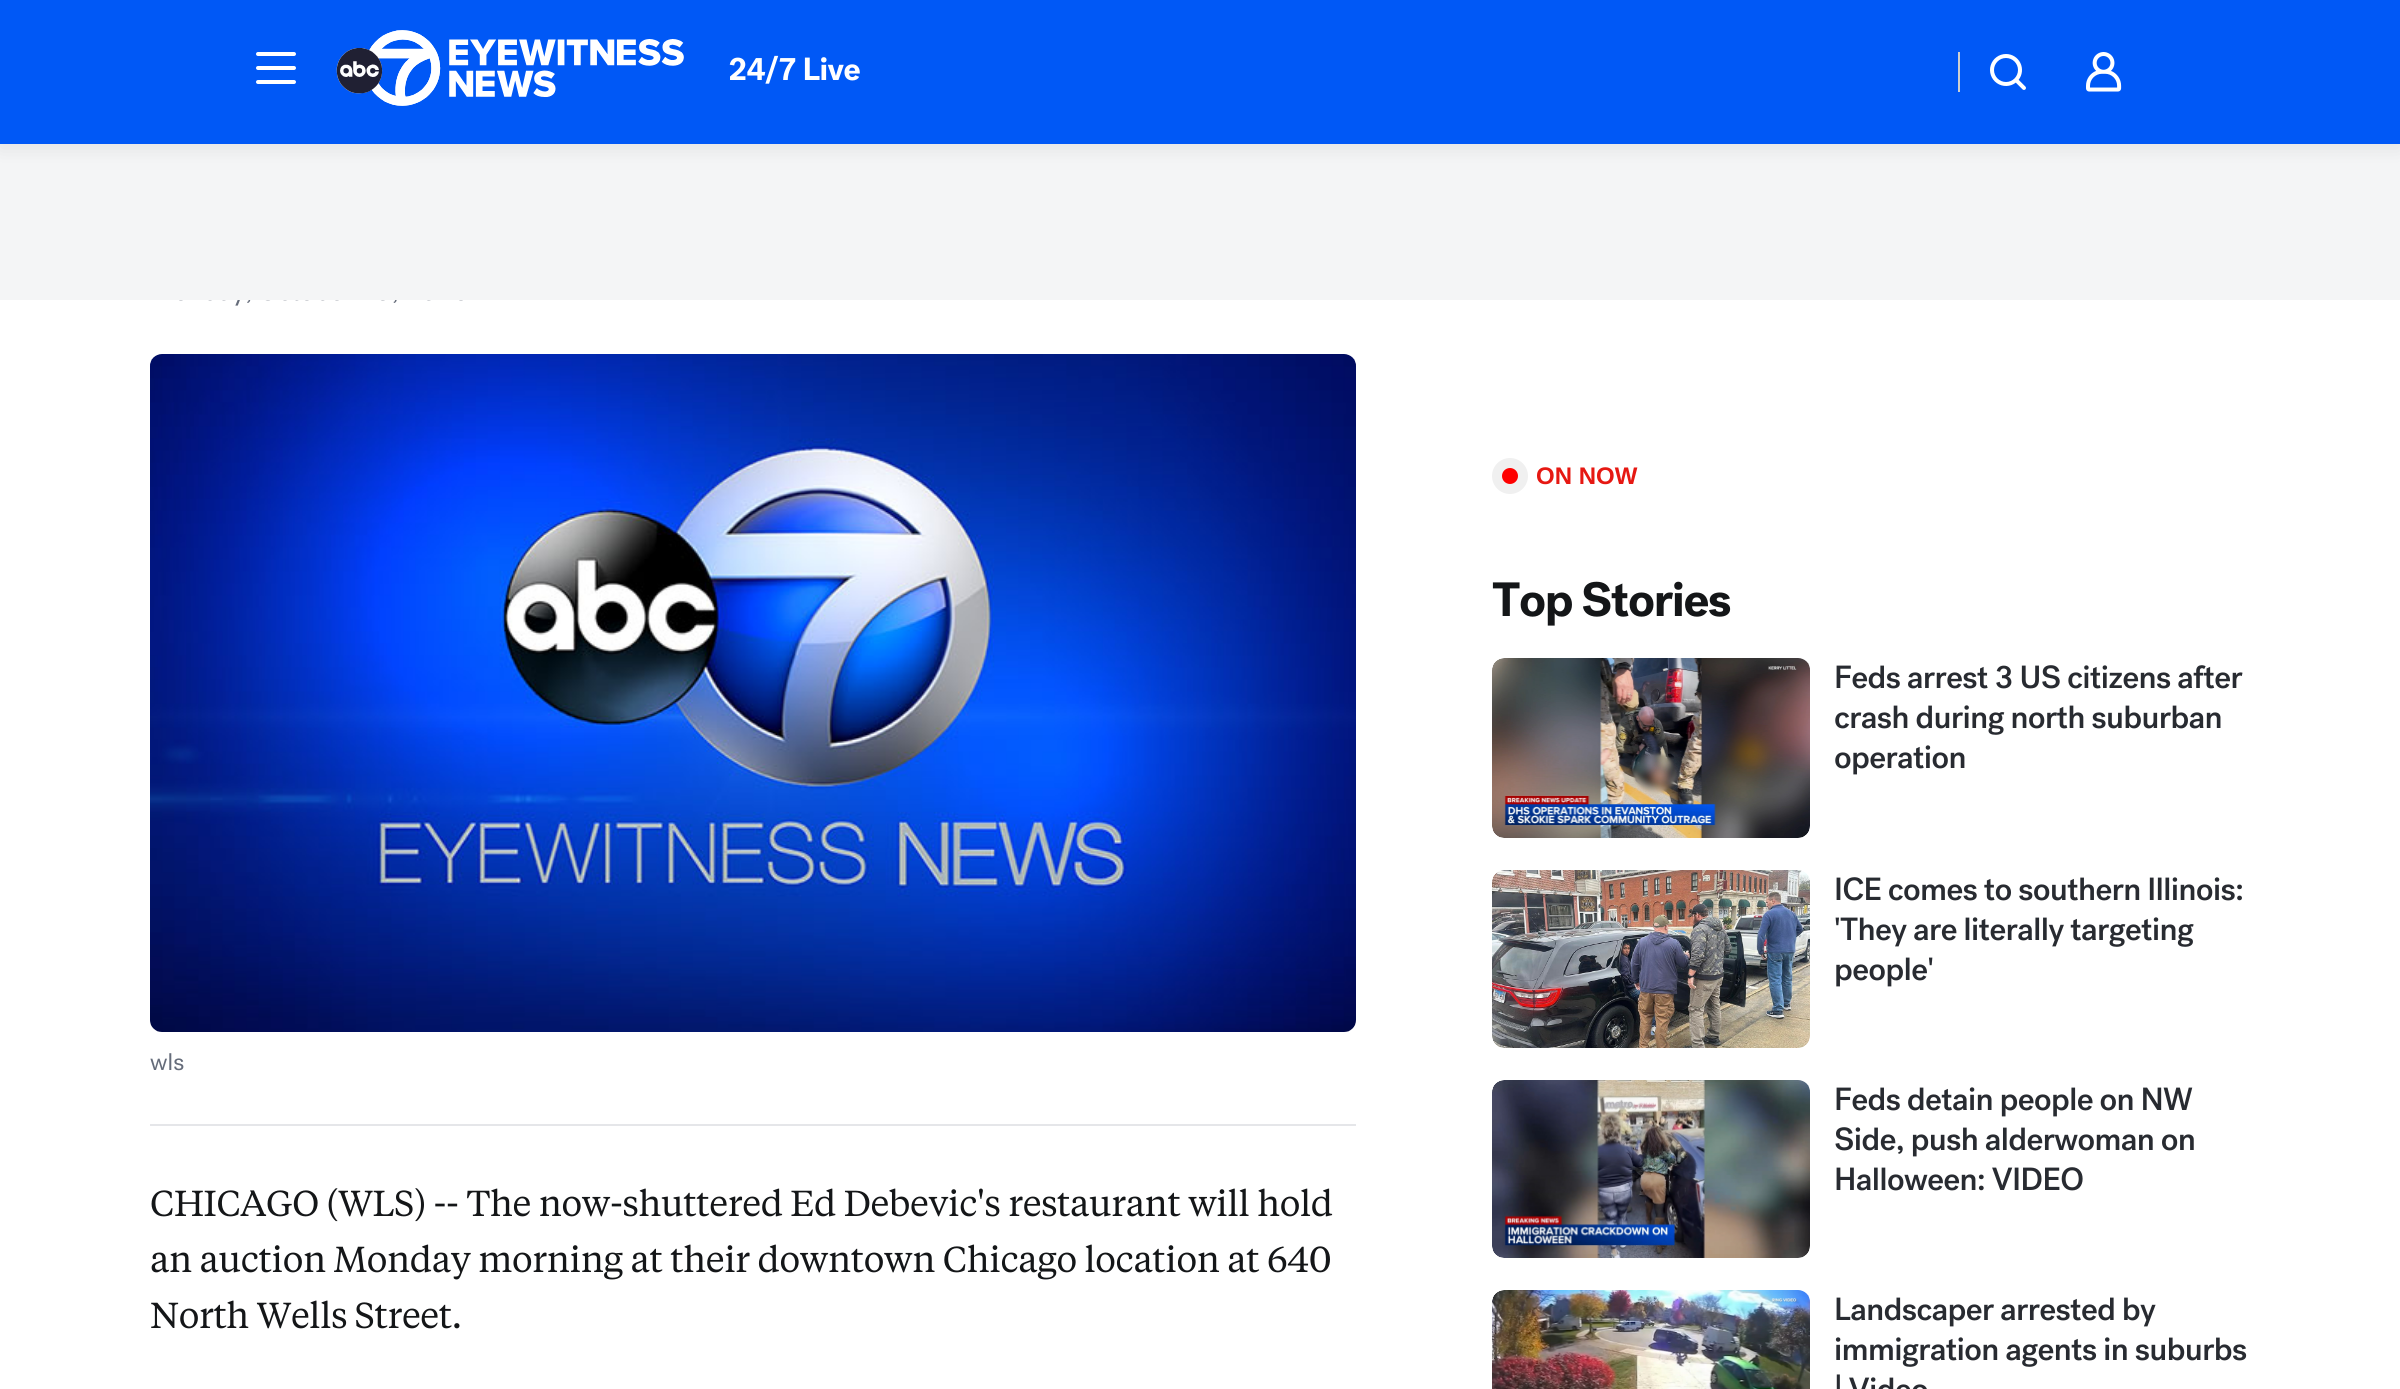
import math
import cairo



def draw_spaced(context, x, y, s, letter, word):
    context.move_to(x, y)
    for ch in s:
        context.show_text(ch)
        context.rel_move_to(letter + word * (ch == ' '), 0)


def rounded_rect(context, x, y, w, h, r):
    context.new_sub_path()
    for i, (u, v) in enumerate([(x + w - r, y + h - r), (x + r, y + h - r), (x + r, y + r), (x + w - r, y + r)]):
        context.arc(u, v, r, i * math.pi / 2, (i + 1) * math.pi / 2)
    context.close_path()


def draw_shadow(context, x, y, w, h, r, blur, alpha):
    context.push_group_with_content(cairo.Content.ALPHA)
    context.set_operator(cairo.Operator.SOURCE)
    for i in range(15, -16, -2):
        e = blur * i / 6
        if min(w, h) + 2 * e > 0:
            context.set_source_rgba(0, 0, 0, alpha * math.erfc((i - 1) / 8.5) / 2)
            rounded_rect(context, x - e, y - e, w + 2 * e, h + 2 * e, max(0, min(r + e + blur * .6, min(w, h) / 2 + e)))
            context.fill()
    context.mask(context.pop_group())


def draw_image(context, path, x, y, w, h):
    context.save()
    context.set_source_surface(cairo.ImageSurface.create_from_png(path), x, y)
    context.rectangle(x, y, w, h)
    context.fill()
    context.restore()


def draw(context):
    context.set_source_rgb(1, 1, 1)
    context.paint()
    context.set_source_rgb(244 / 255, 245 / 255, 246 / 255)
    context.rectangle(0, 144, 2400, 156)
    context.fill()
    context.set_source_rgb(0, 0, 0)
    draw_shadow(context, 0, 4, 2400, 144, 0, 10, 0.08)
    context.set_source_rgb(0, 88 / 255, 246 / 255)
    context.rectangle(0, 0, 2400, 144)
    context.fill()
    context.set_source_rgb(1, 1, 1)
    rounded_rect(context, 256, 66, 40, 4, 2)
    context.fill()
    rounded_rect(context, 256, 52, 40, 4, 2)
    context.fill()
    rounded_rect(context, 256, 80, 40, 4, 2)
    context.fill()
    draw_image(context, "images/1.png", 336, 30, 348, 76)
    draw_image(context, "images/2.png", 729, 55, 131, 29)
    context.set_source_rgb(206 / 255, 207 / 255, 207 / 255)
    context.rectangle(1958, 52, 2, 40)
    context.fill()
    draw_image(context, "images/3.png", 1990, 54, 36, 36)
    draw_image(context, "images/4.png", 2086, 52, 36, 40)
    context.set_source_rgb(240 / 255, 240 / 255, 240 / 255)
    context.arc(1510, 476, 18, 0, 2 * math.pi)
    context.fill()
    context.set_source_rgb(254 / 255, 0, 0)
    context.arc(1510, 476, 8, 0, 2 * math.pi)
    context.fill()
    draw_image(context, "images/5.png", 1492, 581, 239, 45)
    draw_image(context, "images/6.png", 1492, 658, 318, 180)
    draw_image(context, "images/7.png", 1836, 665, 407, 24)
    draw_image(context, "images/8.png", 1835, 705, 386, 30)
    draw_image(context, "images/9.png", 1835, 745, 130, 30)
    draw_image(context, "images/10.png", 1492, 870, 318, 178)
    draw_image(context, "images/11.png", 1836, 877, 406, 24)
    draw_image(context, "images/12.png", 1835, 917, 359, 30)
    draw_image(context, "images/13.png", 1836, 957, 97, 30)
    draw_image(context, "images/14.png", 1492, 1080, 318, 178)
    draw_image(context, "images/15.png", 1836, 1087, 357, 30)
    draw_image(context, "images/16.png", 1835, 1127, 359, 30)
    draw_image(context, "images/17.png", 1836, 1167, 247, 24)
    draw_image(context, "images/18.png", 1492, 1290, 318, 99)
    draw_image(context, "images/19.png", 1836, 1297, 320, 30)
    draw_image(context, "images/20.png", 1835, 1337, 412, 30)
    draw_image(context, "images/21.png", 1836, 1374, 91, 15)
    draw_image(context, "images/22.png", 179, 300, 284, 6)
    draw_image(context, "images/23.png", 150, 354, 1206, 678)
    draw_image(context, "images/24.png", 150, 1053, 34, 18)
    context.set_source_rgb(229 / 255, 230 / 255, 233 / 255)
    context.rectangle(150, 1124, 1206, 2)
    context.fill()
    context.select_font_face("Liberation Sans", cairo.FontSlant.NORMAL, cairo.FontWeight.BOLD)
    context.set_font_size(24)
    context.set_source_rgb(230 / 255, 24 / 255, 18 / 255)
    context.move_to(1536, 484)
    context.show_text("ON NOW")
    context.select_font_face("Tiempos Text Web")
    context.set_font_size(36)
    context.set_source_rgb(20 / 255, 22 / 255, 24 / 255)
    draw_spaced(context, 150, 1216, "CHICAGO (WLS) -- The now-shuttered Ed Debevic's restaurant will hold", -0.35, 0)
    draw_spaced(context, 150, 1272, "an auction Monday morning at their downtown Chicago location at 640", -0.35, 0)
    draw_spaced(context, 150, 1328, "North Wells Street.", -0.35, 0)


surface = cairo.ImageSurface(cairo.Format.RGB24, 2400, 1389)
context = cairo.Context(surface)
options = cairo.FontOptions()
options.set_hint_metrics(cairo.HintMetrics.OFF)
options.set_hint_style(cairo.HintStyle.NONE)
context.set_font_options(options)
context.set_miter_limit(4)
draw(context)
surface.write_to_png("out.png")
